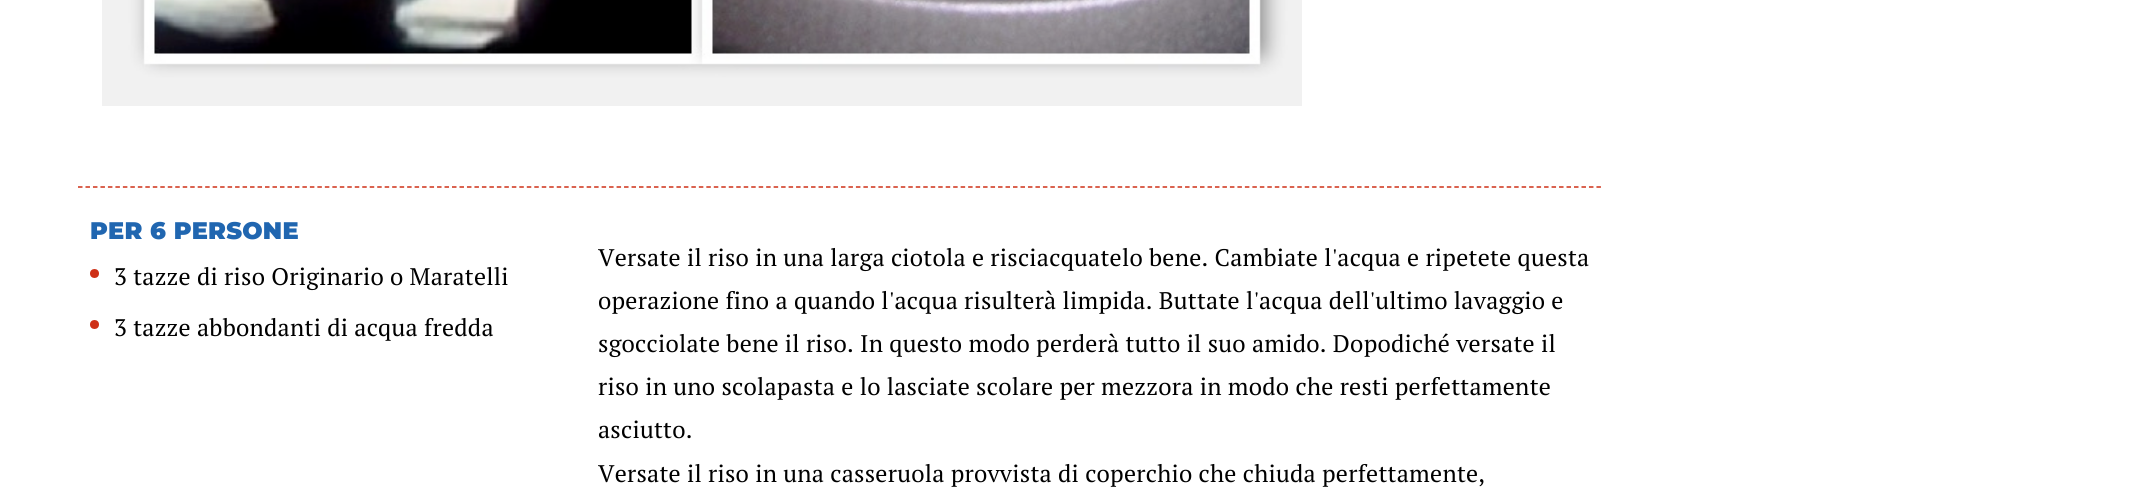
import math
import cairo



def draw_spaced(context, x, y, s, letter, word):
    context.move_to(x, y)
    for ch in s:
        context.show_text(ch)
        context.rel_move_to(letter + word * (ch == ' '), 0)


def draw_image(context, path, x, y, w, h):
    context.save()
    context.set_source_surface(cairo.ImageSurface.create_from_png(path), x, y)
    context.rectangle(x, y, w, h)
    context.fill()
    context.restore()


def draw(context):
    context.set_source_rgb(1, 1, 1)
    context.paint()
    context.new_path()
    context.move_to(78, 187)
    context.line_to(1602, 187)
    context.set_source_rgb(206 / 255, 48 / 255, 23 / 255)
    context.set_line_width(1.5)
    context.set_dash([4.5, 2.98])
    context.stroke()
    draw_image(context, "images/1.png", 102, 0, 1200, 106)
    context.arc(94.5, 273.5, 4.5, 0, 2 * math.pi)
    context.fill()
    context.arc(94.5, 324.5, 4.5, 0, 2 * math.pi)
    context.fill()
    context.select_font_face("Montserrat Black")
    context.set_font_size(24)
    context.set_source_rgb(32 / 255, 102 / 255, 176 / 255)
    draw_spaced(context, 90, 239, "PER 6 PERSONE", 0.25, 0)
    context.select_font_face("PT Serif")
    context.set_source_rgb(0, 0, 0)
    draw_spaced(context, 114, 285, "3 tazze di riso Originario o Maratelli", 0.25, 0)
    draw_spaced(context, 114, 336, "3 tazze abbondanti di acqua fredda", 0.25, 0)
    draw_spaced(context, 598, 266, "Versate il riso in una larga ciotola e risciacquatelo bene. Cambiate l'acqua e ripetete questa", 0.25, 0)
    draw_spaced(context, 598, 309, "operazione fino a quando l'acqua risulterà limpida. Buttate l'acqua dell'ultimo lavaggio e", 0.25, 0)
    draw_spaced(context, 598, 352, "sgocciolate bene il riso. In questo modo perderà tutto il suo amido. Dopodiché versate il", 0.25, 0)
    draw_spaced(context, 598, 395, "riso in uno scolapasta e lo lasciate scolare per mezzora in modo che resti perfettamente", 0.25, 0)
    draw_spaced(context, 598, 438, "asciutto.", 0.25, 0)
    draw_spaced(context, 598, 482, "Versate il riso in una casseruola provvista di coperchio che chiuda perfettamente,", 0.25, 0)


surface = cairo.ImageSurface(cairo.Format.RGB24, 2130, 492)
context = cairo.Context(surface)
options = cairo.FontOptions()
options.set_hint_metrics(cairo.HintMetrics.OFF)
options.set_hint_style(cairo.HintStyle.NONE)
context.set_font_options(options)
context.set_miter_limit(4)
draw(context)
surface.write_to_png("out.png")
